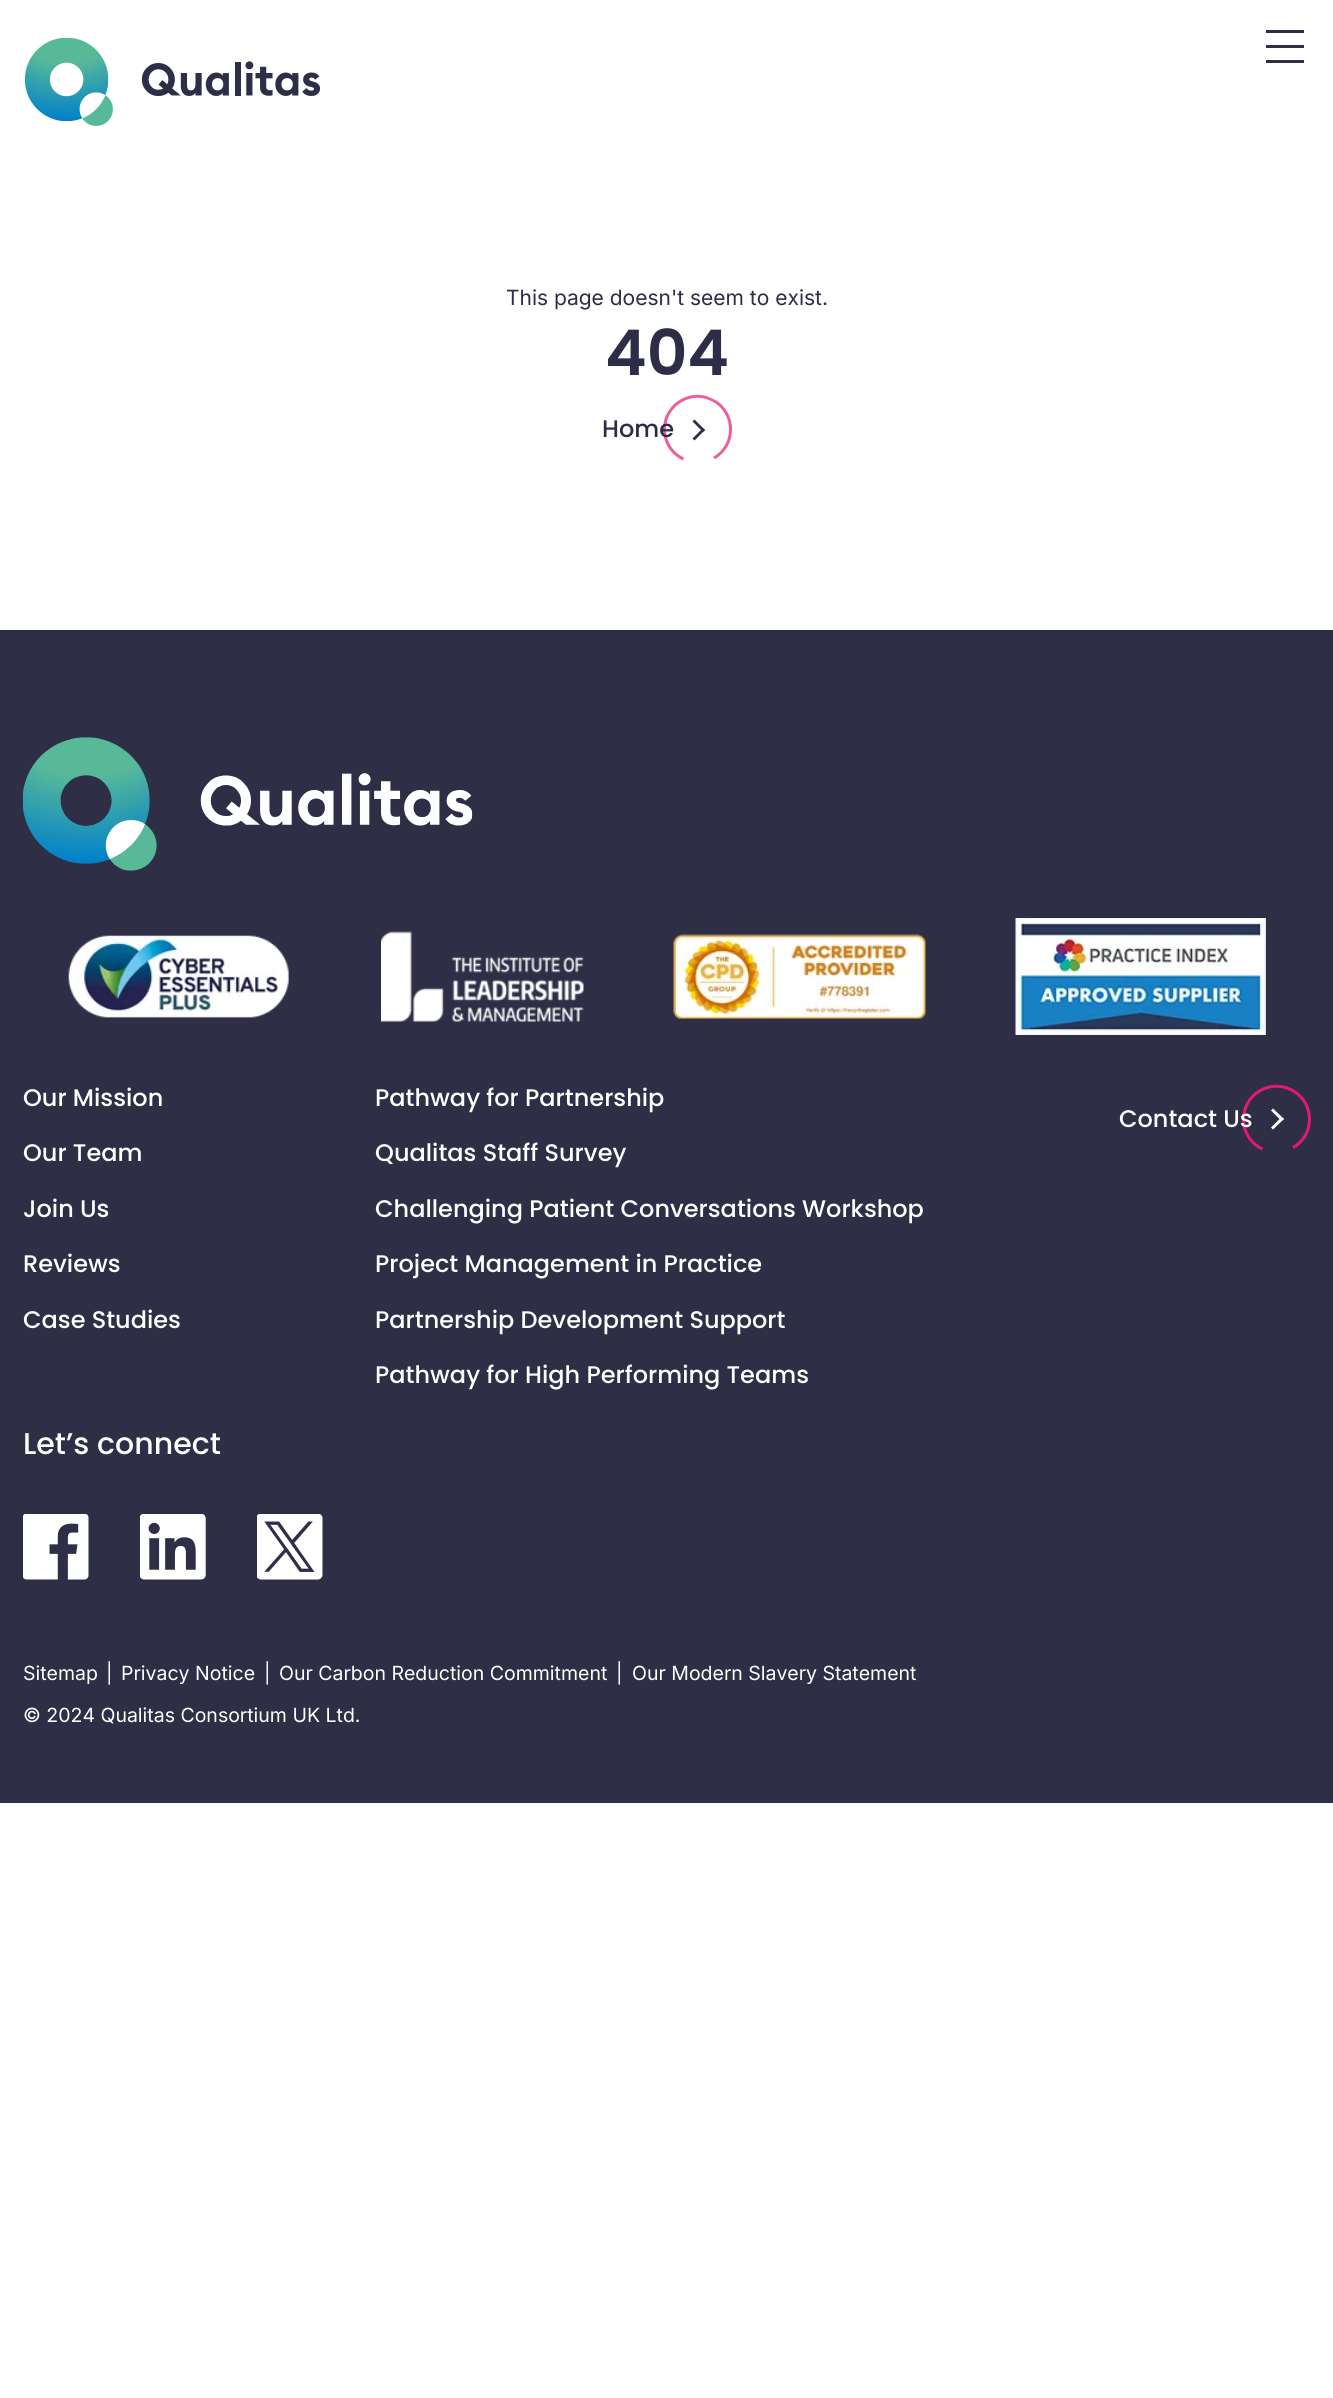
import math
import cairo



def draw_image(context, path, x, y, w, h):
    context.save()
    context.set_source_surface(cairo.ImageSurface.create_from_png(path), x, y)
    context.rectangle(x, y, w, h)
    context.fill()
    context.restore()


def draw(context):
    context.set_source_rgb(1, 1, 1)
    context.paint()
    draw_image(context, "images/1.png", 25, 38, 296, 88)
    context.set_source_rgb(46 / 255, 46 / 255, 71 / 255)
    context.rectangle(1266, 30, 38, 3)
    context.fill()
    context.rectangle(1266, 45, 38, 3)
    context.fill()
    context.rectangle(1266, 60, 38, 3)
    context.fill()
    context.save()
    context.new_path()
    context.move_to(714, 475.5)
    context.line_to(651.5, 446.5)
    context.line_to(680.5, 384)
    context.line_to(743.5, 413)
    context.close_path()
    context.clip()
    context.new_path()
    context.move_to(683.5, 459)
    context.curve_to(667, 451.5, 660, 432, 667.5, 415.5)
    context.curve_to(675.5, 399, 695, 391.5, 711.5, 399.5)
    context.curve_to(728, 407, 735, 426.5, 727.5, 443.5)
    context.curve_to(724.5, 449.5, 720, 454.5, 714, 458)
    context.set_source_rgb(238 / 255, 93 / 255, 157 / 255)
    context.set_line_width(3)
    context.stroke()
    context.restore()
    context.new_path()
    context.move_to(694.5, 419.5)
    context.line_to(705, 430)
    context.line_to(703, 432)
    context.line_to(692.5, 421.5)
    context.close_path()
    context.fill()
    context.new_path()
    context.move_to(703, 428)
    context.line_to(705, 430)
    context.line_to(694.5, 440.5)
    context.line_to(692.5, 438.5)
    context.close_path()
    context.fill()
    context.rectangle(0, 630, 1333, 1173)
    context.fill()
    draw_image(context, "images/2.png", 23, 737, 450, 134)
    draw_image(context, "images/3.png", 68, 935, 221, 83)
    draw_image(context, "images/4.png", 381, 931, 203, 91)
    draw_image(context, "images/5.png", 673, 934, 253, 85)
    draw_image(context, "images/6.png", 1015, 918, 251, 117)
    context.save()
    context.new_path()
    context.move_to(1293, 1165)
    context.line_to(1230.5, 1136)
    context.line_to(1260, 1073.5)
    context.line_to(1322.5, 1102.5)
    context.close_path()
    context.clip()
    context.new_path()
    context.move_to(1262.5, 1149)
    context.curve_to(1246, 1141.5, 1239, 1122, 1246.5, 1105.5)
    context.curve_to(1254, 1089, 1274, 1081.5, 1290.5, 1089.5)
    context.curve_to(1307, 1097, 1314, 1116.5, 1306.5, 1133)
    context.curve_to(1303.5, 1139.5, 1298.5, 1144.5, 1293, 1147.5)
    context.set_source_rgb(230 / 255, 24 / 255, 115 / 255)
    context.set_line_width(3)
    context.stroke()
    context.restore()
    context.set_source_rgb(1, 1, 1)
    context.new_path()
    context.move_to(1273, 1108.5)
    context.line_to(1284, 1119)
    context.line_to(1281.5, 1121)
    context.line_to(1271, 1110.5)
    context.close_path()
    context.fill()
    context.new_path()
    context.move_to(1281.5, 1117)
    context.line_to(1284, 1119)
    context.line_to(1273, 1129.5)
    context.line_to(1271, 1127.5)
    context.close_path()
    context.fill()
    draw_image(context, "images/7.png", 23, 1514, 66, 66)
    draw_image(context, "images/8.png", 140, 1514, 66, 66)
    draw_image(context, "images/9.png", 257, 1514, 66, 66)
    context.select_font_face("Inter")
    context.set_font_size(21)
    context.set_source_rgb(45 / 255, 45 / 255, 71 / 255)
    context.move_to(506, 305)
    context.show_text("This page doesn't seem to exist.")
    context.select_font_face("Poppins SemiBold")
    context.set_font_size(63)
    context.move_to(605, 375)
    context.show_text("404")
    context.select_font_face("Poppins Medium")
    context.set_font_size(24)
    context.move_to(602, 437)
    context.show_text("Home")
    context.set_source_rgb(1, 1, 1)
    context.move_to(23, 1106)
    context.show_text("Our Mission")
    context.move_to(23, 1161)
    context.show_text("Our Team")
    context.move_to(23, 1217)
    context.show_text("Join Us")
    context.move_to(23, 1272)
    context.show_text("Reviews")
    context.move_to(23, 1328)
    context.show_text("Case Studies")
    context.move_to(375, 1106)
    context.show_text("Pathway for Partnership")
    context.move_to(375, 1161)
    context.show_text("Qualitas Staff Survey")
    context.move_to(375, 1217)
    context.show_text("Challenging Patient Conversations Workshop")
    context.move_to(375, 1272)
    context.show_text("Project Management in Practice")
    context.move_to(375, 1328)
    context.show_text("Partnership Development Support")
    context.move_to(375, 1383)
    context.show_text("Pathway for High Performing Teams")
    context.move_to(1119, 1127)
    context.show_text("Contact Us")
    context.set_font_size(30)
    context.move_to(23, 1454)
    context.show_text("Let’s connect")
    context.select_font_face("Inter")
    context.set_font_size(19.5)
    context.move_to(23, 1680)
    context.show_text("Sitemap")
    context.move_to(106, 1680)
    context.show_text("|")
    context.move_to(121, 1680)
    context.show_text("Privacy Notice")
    context.move_to(264, 1680)
    context.show_text("|")
    context.move_to(279, 1680)
    context.show_text("Our Carbon Reduction Commitment")
    context.move_to(616, 1680)
    context.show_text("|")
    context.move_to(632, 1680)
    context.show_text("Our Modern Slavery Statement")
    context.move_to(23, 1722)
    context.show_text("© 2024 Qualitas Consortium UK Ltd.")


surface = cairo.ImageSurface(cairo.Format.RGB24, 1333, 2398)
context = cairo.Context(surface)
options = cairo.FontOptions()
options.set_hint_metrics(cairo.HintMetrics.OFF)
options.set_hint_style(cairo.HintStyle.NONE)
context.set_font_options(options)
context.set_miter_limit(4)
draw(context)
surface.write_to_png("out.png")
